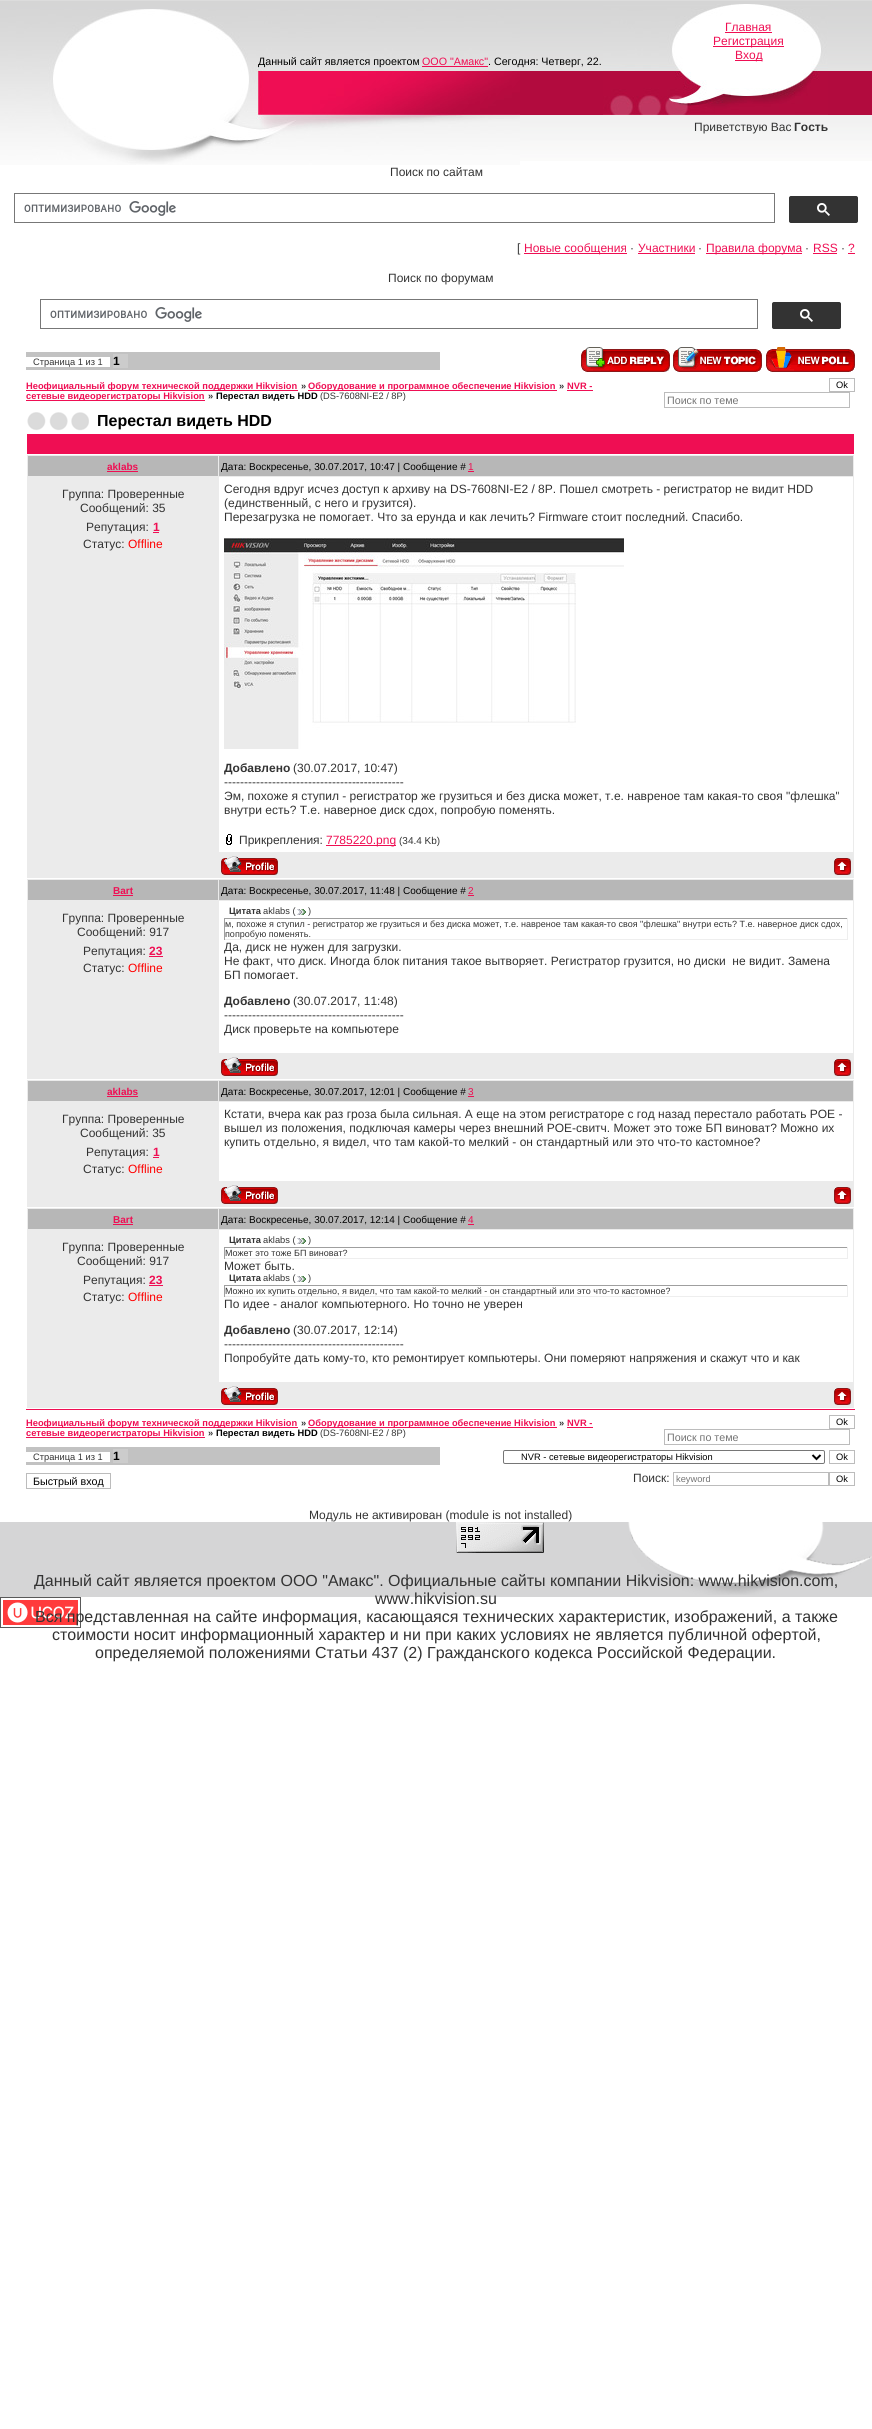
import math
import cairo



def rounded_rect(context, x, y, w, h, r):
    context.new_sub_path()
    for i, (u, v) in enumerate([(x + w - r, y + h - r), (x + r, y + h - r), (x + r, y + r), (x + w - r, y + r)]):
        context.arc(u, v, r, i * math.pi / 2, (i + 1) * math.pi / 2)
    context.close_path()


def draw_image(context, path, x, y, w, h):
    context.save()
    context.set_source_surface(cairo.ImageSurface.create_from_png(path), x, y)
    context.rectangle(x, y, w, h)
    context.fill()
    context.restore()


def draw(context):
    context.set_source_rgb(1, 1, 1)
    context.paint()
    draw_image(context, "images/1.png", 0, 0, 872, 161)
    draw_image(context, "images/2.png", 0, 9, 520, 156)
    context.set_source_rgb(239 / 255, 14 / 255, 83 / 255)
    context.rectangle(422, 66, 66, 1)
    context.fill()
    draw_image(context, "images/3.png", 603, 4, 225, 111)
    context.rectangle(725, 32, 47, 1)
    context.fill()
    context.rectangle(713, 46, 71, 1)
    context.fill()
    context.rectangle(735, 60, 27, 1)
    context.fill()
    context.rectangle(14.5, 193.5, 760, 29)
    context.set_source_rgb(119 / 255, 119 / 255, 119 / 255)
    context.set_line_width(1)
    context.stroke()
    draw_image(context, "images/4.png", 24, 201, 152, 15)
    context.set_source_rgb(51 / 255, 51 / 255, 51 / 255)
    rounded_rect(context, 789.5, 196.5, 68, 26, 1.5)
    context.fill_preserve()
    context.stroke()
    draw_image(context, "images/5.png", 817, 203, 13, 13)
    context.set_source_rgb(239 / 255, 14 / 255, 83 / 255)
    context.rectangle(524, 253, 103, 1)
    context.fill()
    context.rectangle(638, 253, 57, 1)
    context.fill()
    context.rectangle(706, 253, 96, 1)
    context.fill()
    context.rectangle(813, 253, 24, 1)
    context.fill()
    context.rectangle(848, 253, 7, 1)
    context.fill()
    context.rectangle(40.5, 299.5, 717, 29)
    context.set_source_rgb(119 / 255, 119 / 255, 119 / 255)
    context.stroke()
    draw_image(context, "images/4.png", 50, 307, 152, 15)
    context.set_source_rgb(51 / 255, 51 / 255, 51 / 255)
    rounded_rect(context, 772.5, 302.5, 68, 26, 1.5)
    context.fill_preserve()
    context.stroke()
    draw_image(context, "images/5.png", 800, 309, 13, 13)
    context.set_source_rgb(194 / 255, 194 / 255, 194 / 255)
    context.rectangle(26, 352, 414, 18)
    context.fill()
    context.set_source_rgb(1, 1, 1)
    context.rectangle(26, 357, 84, 10)
    context.fill()
    context.set_source_rgb(204 / 255, 204 / 255, 204 / 255)
    context.rectangle(113, 354, 15, 14)
    context.fill()
    draw_image(context, "images/6.png", 581, 347, 89, 25)
    draw_image(context, "images/7.png", 673, 347, 89, 25)
    draw_image(context, "images/8.png", 766, 347, 89, 25)
    context.set_source_rgb(239 / 255, 14 / 255, 83 / 255)
    context.rectangle(26, 390, 272, 1)
    context.fill()
    context.rectangle(308, 390, 249, 1)
    context.fill()
    context.rectangle(567, 390, 26, 1)
    context.fill()
    context.rectangle(26, 400, 179, 1)
    context.fill()
    context.rectangle(829.5, 378.5, 25, 13)
    context.set_source_rgb(188 / 255, 188 / 255, 188 / 255)
    context.stroke()
    context.rectangle(664.5, 392.5, 185, 15)
    context.stroke()
    context.set_source_rgb(239 / 255, 14 / 255, 83 / 255)
    context.rectangle(26, 1409, 829, 1)
    context.fill()
    draw_image(context, "images/9.png", 27, 412, 62, 19)
    context.rectangle(27, 434, 827, 20)
    context.fill()
    context.set_source_rgb(235 / 255, 235 / 255, 235 / 255)
    context.rectangle(27, 455, 827, 423)
    context.fill()
    context.set_source_rgb(183 / 255, 183 / 255, 183 / 255)
    context.rectangle(28, 456, 190, 20)
    context.fill()
    context.set_source_rgb(239 / 255, 14 / 255, 83 / 255)
    context.rectangle(107, 471, 31, 1)
    context.fill()
    context.set_source_rgb(183 / 255, 183 / 255, 183 / 255)
    context.rectangle(219, 456, 634, 20)
    context.fill()
    context.set_source_rgb(239 / 255, 14 / 255, 83 / 255)
    context.rectangle(468, 471, 6, 1)
    context.fill()
    context.rectangle(153, 532, 6, 1)
    context.fill()
    context.set_source_rgb(1, 1, 1)
    context.rectangle(219, 477, 634, 375)
    context.fill()
    draw_image(context, "images/10.png", 224, 538, 400, 211)
    draw_image(context, "images/11.png", 226, 834, 6, 11)
    context.set_source_rgb(239 / 255, 14 / 255, 83 / 255)
    context.rectangle(326, 845, 70, 1)
    context.fill()
    draw_image(context, "images/12.png", 221, 856, 57, 19)
    draw_image(context, "images/13.png", 834, 858, 17, 17)
    context.set_source_rgb(235 / 255, 235 / 255, 235 / 255)
    context.rectangle(27, 879, 827, 200)
    context.fill()
    context.set_source_rgb(183 / 255, 183 / 255, 183 / 255)
    context.rectangle(28, 880, 190, 20)
    context.fill()
    context.set_source_rgb(239 / 255, 14 / 255, 83 / 255)
    context.rectangle(113, 895, 20, 1)
    context.fill()
    context.set_source_rgb(183 / 255, 183 / 255, 183 / 255)
    context.rectangle(219, 880, 634, 20)
    context.fill()
    context.set_source_rgb(239 / 255, 14 / 255, 83 / 255)
    context.rectangle(468, 895, 6, 1)
    context.fill()
    context.rectangle(149, 956, 14, 1)
    context.fill()
    context.set_source_rgb(1, 1, 1)
    context.rectangle(219, 901, 634, 152)
    context.fill()
    draw_image(context, "images/14.png", 297, 909, 9, 6)
    context.set_source_rgb(159 / 255, 159 / 255, 159 / 255)
    context.rectangle(224, 918, 624, 1)
    context.fill()
    context.set_source_rgb(238 / 255, 238 / 255, 238 / 255)
    context.rectangle(847, 918, 1, 22)
    context.fill()
    context.rectangle(224, 939, 624, 1)
    context.fill()
    context.set_source_rgb(159 / 255, 159 / 255, 159 / 255)
    context.rectangle(224, 918, 1, 22)
    context.fill()
    draw_image(context, "images/12.png", 221, 1057, 57, 19)
    draw_image(context, "images/13.png", 834, 1059, 17, 17)
    context.set_source_rgb(235 / 255, 235 / 255, 235 / 255)
    context.rectangle(27, 1080, 827, 127)
    context.fill()
    context.set_source_rgb(183 / 255, 183 / 255, 183 / 255)
    context.rectangle(28, 1081, 190, 20)
    context.fill()
    context.set_source_rgb(239 / 255, 14 / 255, 83 / 255)
    context.rectangle(107, 1096, 31, 1)
    context.fill()
    context.set_source_rgb(183 / 255, 183 / 255, 183 / 255)
    context.rectangle(219, 1081, 634, 20)
    context.fill()
    context.set_source_rgb(239 / 255, 14 / 255, 83 / 255)
    context.rectangle(468, 1096, 6, 1)
    context.fill()
    context.rectangle(153, 1157, 6, 1)
    context.fill()
    context.set_source_rgb(1, 1, 1)
    context.rectangle(219, 1102, 634, 79)
    context.fill()
    draw_image(context, "images/12.png", 221, 1185, 57, 19)
    draw_image(context, "images/13.png", 834, 1187, 17, 17)
    context.set_source_rgb(235 / 255, 235 / 255, 235 / 255)
    context.rectangle(27, 1208, 827, 200)
    context.fill()
    context.set_source_rgb(183 / 255, 183 / 255, 183 / 255)
    context.rectangle(28, 1209, 190, 20)
    context.fill()
    context.set_source_rgb(239 / 255, 14 / 255, 83 / 255)
    context.rectangle(113, 1224, 20, 1)
    context.fill()
    context.set_source_rgb(183 / 255, 183 / 255, 183 / 255)
    context.rectangle(219, 1209, 634, 20)
    context.fill()
    context.set_source_rgb(239 / 255, 14 / 255, 83 / 255)
    context.rectangle(468, 1224, 6, 1)
    context.fill()
    context.rectangle(149, 1285, 14, 1)
    context.fill()
    context.set_source_rgb(1, 1, 1)
    context.rectangle(219, 1230, 634, 152)
    context.fill()
    draw_image(context, "images/14.png", 297, 1238, 9, 6)
    context.set_source_rgb(159 / 255, 159 / 255, 159 / 255)
    context.rectangle(224, 1247, 624, 1)
    context.fill()
    context.set_source_rgb(238 / 255, 238 / 255, 238 / 255)
    context.rectangle(847, 1247, 1, 12)
    context.fill()
    context.rectangle(224, 1258, 624, 1)
    context.fill()
    context.set_source_rgb(159 / 255, 159 / 255, 159 / 255)
    context.rectangle(224, 1247, 1, 12)
    context.fill()
    draw_image(context, "images/14.png", 297, 1276, 9, 6)
    context.rectangle(224, 1285, 624, 1)
    context.fill()
    context.set_source_rgb(238 / 255, 238 / 255, 238 / 255)
    context.rectangle(847, 1285, 1, 12)
    context.fill()
    context.rectangle(224, 1296, 624, 1)
    context.fill()
    context.set_source_rgb(159 / 255, 159 / 255, 159 / 255)
    context.rectangle(224, 1285, 1, 12)
    context.fill()
    draw_image(context, "images/12.png", 221, 1386, 57, 19)
    draw_image(context, "images/13.png", 834, 1388, 17, 17)
    context.set_source_rgb(239 / 255, 14 / 255, 83 / 255)
    context.rectangle(26, 1427, 272, 1)
    context.fill()
    context.rectangle(308, 1427, 249, 1)
    context.fill()
    context.rectangle(567, 1427, 26, 1)
    context.fill()
    context.rectangle(26, 1437, 179, 1)
    context.fill()
    context.rectangle(829.5, 1415.5, 25, 13)
    context.set_source_rgb(188 / 255, 188 / 255, 188 / 255)
    context.stroke()
    context.rectangle(664.5, 1429.5, 185, 15)
    context.stroke()
    context.set_source_rgb(194 / 255, 194 / 255, 194 / 255)
    context.rectangle(26, 1447, 414, 18)
    context.fill()
    context.set_source_rgb(1, 1, 1)
    context.rectangle(26, 1452, 84, 10)
    context.fill()
    context.set_source_rgb(204 / 255, 204 / 255, 204 / 255)
    context.rectangle(113, 1449, 15, 14)
    context.fill()
    rounded_rect(context, 503.5, 1450.5, 321, 13, 1.5)
    context.set_source_rgb(118 / 255, 118 / 255, 118 / 255)
    context.stroke()
    context.new_path()
    context.move_to(812.5, 1455)
    context.line_to(816.5, 1459)
    context.line_to(820.5, 1455)
    context.set_source_rgb(0, 0, 0)
    context.set_line_width(2)
    context.stroke()
    context.rectangle(829.5, 1450.5, 25, 13)
    context.set_source_rgb(188 / 255, 188 / 255, 188 / 255)
    context.set_line_width(1)
    context.stroke()
    context.rectangle(26.5, 1473.5, 84, 15)
    context.stroke()
    context.rectangle(673.5, 1472.5, 155, 13)
    context.stroke()
    context.rectangle(829.5, 1472.5, 25, 13)
    context.stroke()
    context.set_source_rgb(213 / 255, 213 / 255, 214 / 255)
    context.rectangle(0, 1522, 872, 75)
    context.fill()
    draw_image(context, "images/15.png", 628, 1522, 244, 73)
    draw_image(context, "images/16.png", 456, 1522, 88, 31)
    draw_image(context, "images/17.png", 0, 1597, 81, 31)
    context.select_font_face("Liberation Sans")
    context.set_font_size(10.7)
    context.set_source_rgb(0, 0, 0)
    context.move_to(258, 65)
    context.show_text("Данный сайт является проектом")
    context.set_source_rgb(239 / 255, 14 / 255, 83 / 255)
    context.move_to(422, 65)
    context.show_text("ООО \"Амакс\"")
    context.set_source_rgb(0, 0, 0)
    context.move_to(488, 65)
    context.show_text(". Сегодня: Четверг, 22.")
    context.set_font_size(12)
    context.set_source_rgb(239 / 255, 14 / 255, 83 / 255)
    context.move_to(725, 31)
    context.show_text("Главная")
    context.move_to(713, 45)
    context.show_text("Регистрация")
    context.move_to(735, 59)
    context.show_text("Вход")
    context.set_source_rgb(51 / 255, 51 / 255, 51 / 255)
    context.move_to(694, 131)
    context.show_text("Приветствую Вас")
    context.select_font_face("Liberation Sans", cairo.FontSlant.NORMAL, cairo.FontWeight.BOLD)
    context.move_to(794, 131)
    context.show_text("Гость")
    context.select_font_face("Liberation Sans")
    context.move_to(390, 176)
    context.show_text("Поиск по сайтам")
    context.move_to(517, 252)
    context.show_text("[")
    context.set_source_rgb(239 / 255, 14 / 255, 83 / 255)
    context.move_to(524, 252)
    context.show_text("Новые сообщения")
    context.set_source_rgb(51 / 255, 51 / 255, 51 / 255)
    context.move_to(630, 252)
    context.show_text("·")
    context.set_source_rgb(239 / 255, 14 / 255, 83 / 255)
    context.move_to(638, 252)
    context.show_text("Участники")
    context.set_source_rgb(51 / 255, 51 / 255, 51 / 255)
    context.move_to(698, 252)
    context.show_text("·")
    context.set_source_rgb(239 / 255, 14 / 255, 83 / 255)
    context.move_to(706, 252)
    context.show_text("Правила форума")
    context.set_source_rgb(51 / 255, 51 / 255, 51 / 255)
    context.move_to(805, 252)
    context.show_text("·")
    context.set_source_rgb(239 / 255, 14 / 255, 83 / 255)
    context.move_to(813, 252)
    context.show_text("RSS")
    context.set_source_rgb(51 / 255, 51 / 255, 51 / 255)
    context.move_to(841, 252)
    context.show_text("·")
    context.set_source_rgb(239 / 255, 14 / 255, 83 / 255)
    context.move_to(848, 252)
    context.show_text("?")
    context.set_source_rgb(51 / 255, 51 / 255, 51 / 255)
    context.move_to(388, 282)
    context.show_text("Поиск по форумам")
    context.set_font_size(9.3)
    context.move_to(33, 365)
    context.show_text("Страница 1 из 1")
    context.select_font_face("Liberation Sans", cairo.FontSlant.NORMAL, cairo.FontWeight.BOLD)
    context.set_font_size(12)
    context.set_source_rgb(0, 0, 0)
    context.move_to(113, 365)
    context.show_text("1")
    context.set_font_size(9.3)
    context.set_source_rgb(239 / 255, 14 / 255, 83 / 255)
    context.move_to(26, 389)
    context.show_text("Неофициальный форум технической поддержки Hikvision")
    context.set_source_rgb(51 / 255, 51 / 255, 51 / 255)
    context.move_to(301, 389)
    context.show_text("»")
    context.set_source_rgb(239 / 255, 14 / 255, 83 / 255)
    context.move_to(308, 389)
    context.show_text("Оборудование и программное обеспечение Hikvision")
    context.set_source_rgb(51 / 255, 51 / 255, 51 / 255)
    context.move_to(559, 389)
    context.show_text("»")
    context.set_source_rgb(239 / 255, 14 / 255, 83 / 255)
    context.move_to(567, 389)
    context.show_text("NVR -")
    context.move_to(26, 399)
    context.show_text("сетевые видеорегистраторы Hikvision")
    context.set_source_rgb(51 / 255, 51 / 255, 51 / 255)
    context.move_to(208, 399)
    context.show_text("»")
    context.set_source_rgb(0, 0, 0)
    context.move_to(216, 399)
    context.show_text("Перестал видеть HDD")
    context.select_font_face("Liberation Sans")
    context.set_source_rgb(51 / 255, 51 / 255, 51 / 255)
    context.move_to(320, 399)
    context.show_text("(DS-7608NI-E2 / 8P)")
    context.set_source_rgb(0, 0, 0)
    context.move_to(836, 388)
    context.show_text("Ok")
    context.set_font_size(10.7)
    context.set_source_rgb(117 / 255, 117 / 255, 117 / 255)
    context.move_to(667, 404)
    context.show_text("Поиск по теме")
    context.select_font_face("Liberation Sans", cairo.FontSlant.NORMAL, cairo.FontWeight.BOLD)
    context.set_font_size(16)
    context.set_source_rgb(0, 0, 0)
    context.move_to(97, 426)
    context.show_text("Перестал видеть HDD")
    context.set_font_size(10)
    context.set_source_rgb(239 / 255, 14 / 255, 83 / 255)
    context.move_to(107, 470)
    context.show_text("aklabs")
    context.select_font_face("Liberation Sans")
    context.set_source_rgb(0, 0, 0)
    context.move_to(221, 470)
    context.show_text("Дата: Воскресенье, 30.07.2017, 10:47 | Сообщение #")
    context.set_source_rgb(239 / 255, 14 / 255, 83 / 255)
    context.move_to(468, 470)
    context.show_text("1")
    context.set_font_size(12)
    context.set_source_rgb(51 / 255, 51 / 255, 51 / 255)
    context.move_to(62, 498)
    context.show_text("Группа: Проверенные")
    context.move_to(80, 512)
    context.show_text("Сообщений: 35")
    context.move_to(86, 531)
    context.show_text("Репутация:")
    context.select_font_face("Liberation Sans", cairo.FontSlant.NORMAL, cairo.FontWeight.BOLD)
    context.set_source_rgb(239 / 255, 14 / 255, 83 / 255)
    context.move_to(153, 531)
    context.show_text("1")
    context.select_font_face("Liberation Sans")
    context.set_source_rgb(51 / 255, 51 / 255, 51 / 255)
    context.move_to(83, 548)
    context.show_text("Статус:")
    context.set_source_rgb(1, 0, 0)
    context.move_to(128, 548)
    context.show_text("Offline")
    context.set_source_rgb(51 / 255, 51 / 255, 51 / 255)
    context.move_to(224, 493)
    context.show_text("Сегодня вдруг исчез доступ к архиву на DS-7608NI-E2 / 8P. Пошел смотреть - регистратор не видит HDD")
    context.move_to(224, 507)
    context.show_text("(единственный, с него и грузится).")
    context.move_to(224, 521)
    context.show_text("Перезагрузка не помогает. Что за ерунда и как лечить? Firmware стоит последний. Спасибо.")
    context.select_font_face("Liberation Sans", cairo.FontSlant.NORMAL, cairo.FontWeight.BOLD)
    context.move_to(224, 772)
    context.show_text("Добавлено")
    context.select_font_face("Liberation Sans")
    context.move_to(293, 772)
    context.show_text("(30.07.2017, 10:47)")
    context.move_to(224, 786)
    context.show_text("---------------------------------------------")
    context.move_to(224, 800)
    context.show_text("Эм, похоже я ступил - регистратор же грузиться и без диска может, т.е. навреное там какая-то своя \"флешка\"")
    context.move_to(224, 814)
    context.show_text("внутри есть? Т.е. наверное диск сдох, попробую поменять.")
    context.move_to(239, 844)
    context.show_text("Прикрепления:")
    context.set_source_rgb(239 / 255, 14 / 255, 83 / 255)
    context.move_to(326, 844)
    context.show_text("7785220.png")
    context.set_font_size(10)
    context.set_source_rgb(51 / 255, 51 / 255, 51 / 255)
    context.move_to(399, 844)
    context.show_text("(34.4 Kb)")
    context.select_font_face("Liberation Sans", cairo.FontSlant.NORMAL, cairo.FontWeight.BOLD)
    context.set_source_rgb(239 / 255, 14 / 255, 83 / 255)
    context.move_to(113, 894)
    context.show_text("Bart")
    context.select_font_face("Liberation Sans")
    context.set_source_rgb(0, 0, 0)
    context.move_to(221, 894)
    context.show_text("Дата: Воскресенье, 30.07.2017, 11:48 | Сообщение #")
    context.set_source_rgb(239 / 255, 14 / 255, 83 / 255)
    context.move_to(468, 894)
    context.show_text("2")
    context.set_font_size(12)
    context.set_source_rgb(51 / 255, 51 / 255, 51 / 255)
    context.move_to(62, 922)
    context.show_text("Группа: Проверенные")
    context.move_to(77, 936)
    context.show_text("Сообщений: 917")
    context.move_to(83, 955)
    context.show_text("Репутация:")
    context.select_font_face("Liberation Sans", cairo.FontSlant.NORMAL, cairo.FontWeight.BOLD)
    context.set_source_rgb(239 / 255, 14 / 255, 83 / 255)
    context.move_to(149, 955)
    context.show_text("23")
    context.select_font_face("Liberation Sans")
    context.set_source_rgb(51 / 255, 51 / 255, 51 / 255)
    context.move_to(83, 972)
    context.show_text("Статус:")
    context.set_source_rgb(1, 0, 0)
    context.move_to(128, 972)
    context.show_text("Offline")
    context.select_font_face("Liberation Sans", cairo.FontSlant.NORMAL, cairo.FontWeight.BOLD)
    context.set_font_size(9.3)
    context.set_source_rgb(51 / 255, 51 / 255, 51 / 255)
    context.move_to(229, 914)
    context.show_text("Цитата")
    context.select_font_face("Liberation Sans")
    context.move_to(263, 914)
    context.show_text("aklabs (")
    context.move_to(308, 914)
    context.show_text(")")
    context.set_font_size(9)
    context.move_to(225, 927)
    context.show_text("м, похоже я ступил - регистратор же грузиться и без диска может, т.е. навреное там какая-то своя \"флешка\" внутри есть? Т.е. наверное диск сдох,")
    context.move_to(225, 937)
    context.show_text("попробую поменять.")
    context.set_font_size(12)
    context.move_to(224, 951)
    context.show_text("Да, диск не нужен для загрузки.")
    context.move_to(224, 965)
    context.show_text("Не факт, что диск. Иногда блок питания такое вытворяет. Регистратор грузится, но диски  не видит. Замена")
    context.move_to(224, 979)
    context.show_text("БП помогает.")
    context.select_font_face("Liberation Sans", cairo.FontSlant.NORMAL, cairo.FontWeight.BOLD)
    context.move_to(224, 1005)
    context.show_text("Добавлено")
    context.select_font_face("Liberation Sans")
    context.move_to(293, 1005)
    context.show_text("(30.07.2017, 11:48)")
    context.move_to(224, 1019)
    context.show_text("---------------------------------------------")
    context.move_to(224, 1033)
    context.show_text("Диск проверьте на компьютере")
    context.select_font_face("Liberation Sans", cairo.FontSlant.NORMAL, cairo.FontWeight.BOLD)
    context.set_font_size(10)
    context.set_source_rgb(239 / 255, 14 / 255, 83 / 255)
    context.move_to(107, 1095)
    context.show_text("aklabs")
    context.select_font_face("Liberation Sans")
    context.set_source_rgb(0, 0, 0)
    context.move_to(221, 1095)
    context.show_text("Дата: Воскресенье, 30.07.2017, 12:01 | Сообщение #")
    context.set_source_rgb(239 / 255, 14 / 255, 83 / 255)
    context.move_to(468, 1095)
    context.show_text("3")
    context.set_font_size(12)
    context.set_source_rgb(51 / 255, 51 / 255, 51 / 255)
    context.move_to(62, 1123)
    context.show_text("Группа: Проверенные")
    context.move_to(80, 1137)
    context.show_text("Сообщений: 35")
    context.move_to(86, 1156)
    context.show_text("Репутация:")
    context.select_font_face("Liberation Sans", cairo.FontSlant.NORMAL, cairo.FontWeight.BOLD)
    context.set_source_rgb(239 / 255, 14 / 255, 83 / 255)
    context.move_to(153, 1156)
    context.show_text("1")
    context.select_font_face("Liberation Sans")
    context.set_source_rgb(51 / 255, 51 / 255, 51 / 255)
    context.move_to(83, 1173)
    context.show_text("Статус:")
    context.set_source_rgb(1, 0, 0)
    context.move_to(128, 1173)
    context.show_text("Offline")
    context.set_source_rgb(51 / 255, 51 / 255, 51 / 255)
    context.move_to(224, 1118)
    context.show_text("Кстати, вчера как раз гроза была сильная. А еще на этом регистраторе с год назад перестало работать POE -")
    context.move_to(224, 1132)
    context.show_text("вышел из положения, подключая камеры через внешний POE-свитч. Может это тоже БП виноват? Можно их")
    context.move_to(224, 1146)
    context.show_text("купить отдельно, я видел, что там какой-то мелкий - он стандартный или это что-то кастомное?")
    context.select_font_face("Liberation Sans", cairo.FontSlant.NORMAL, cairo.FontWeight.BOLD)
    context.set_font_size(10)
    context.set_source_rgb(239 / 255, 14 / 255, 83 / 255)
    context.move_to(113, 1223)
    context.show_text("Bart")
    context.select_font_face("Liberation Sans")
    context.set_source_rgb(0, 0, 0)
    context.move_to(221, 1223)
    context.show_text("Дата: Воскресенье, 30.07.2017, 12:14 | Сообщение #")
    context.set_source_rgb(239 / 255, 14 / 255, 83 / 255)
    context.move_to(468, 1223)
    context.show_text("4")
    context.set_font_size(12)
    context.set_source_rgb(51 / 255, 51 / 255, 51 / 255)
    context.move_to(62, 1251)
    context.show_text("Группа: Проверенные")
    context.move_to(77, 1265)
    context.show_text("Сообщений: 917")
    context.move_to(83, 1284)
    context.show_text("Репутация:")
    context.select_font_face("Liberation Sans", cairo.FontSlant.NORMAL, cairo.FontWeight.BOLD)
    context.set_source_rgb(239 / 255, 14 / 255, 83 / 255)
    context.move_to(149, 1284)
    context.show_text("23")
    context.select_font_face("Liberation Sans")
    context.set_source_rgb(51 / 255, 51 / 255, 51 / 255)
    context.move_to(83, 1301)
    context.show_text("Статус:")
    context.set_source_rgb(1, 0, 0)
    context.move_to(128, 1301)
    context.show_text("Offline")
    context.select_font_face("Liberation Sans", cairo.FontSlant.NORMAL, cairo.FontWeight.BOLD)
    context.set_font_size(9.3)
    context.set_source_rgb(51 / 255, 51 / 255, 51 / 255)
    context.move_to(229, 1243)
    context.show_text("Цитата")
    context.select_font_face("Liberation Sans")
    context.move_to(263, 1243)
    context.show_text("aklabs (")
    context.move_to(308, 1243)
    context.show_text(")")
    context.set_font_size(9)
    context.move_to(225, 1256)
    context.show_text("Может это тоже БП виноват?")
    context.set_font_size(12)
    context.move_to(224, 1270)
    context.show_text("Может быть.")
    context.select_font_face("Liberation Sans", cairo.FontSlant.NORMAL, cairo.FontWeight.BOLD)
    context.set_font_size(9.3)
    context.move_to(229, 1281)
    context.show_text("Цитата")
    context.select_font_face("Liberation Sans")
    context.move_to(263, 1281)
    context.show_text("aklabs (")
    context.move_to(308, 1281)
    context.show_text(")")
    context.set_font_size(9)
    context.move_to(225, 1294)
    context.show_text("Можно их купить отдельно, я видел, что там какой-то мелкий - он стандартный или это что-то кастомное?")
    context.set_font_size(12)
    context.move_to(224, 1308)
    context.show_text("По идее - аналог компьютерного. Но точно не уверен")
    context.select_font_face("Liberation Sans", cairo.FontSlant.NORMAL, cairo.FontWeight.BOLD)
    context.move_to(224, 1334)
    context.show_text("Добавлено")
    context.select_font_face("Liberation Sans")
    context.move_to(293, 1334)
    context.show_text("(30.07.2017, 12:14)")
    context.move_to(224, 1348)
    context.show_text("---------------------------------------------")
    context.move_to(224, 1362)
    context.show_text("Попробуйте дать кому-то, кто ремонтирует компьютеры. Они померяют напряжения и скажут что и как")
    context.select_font_face("Liberation Sans", cairo.FontSlant.NORMAL, cairo.FontWeight.BOLD)
    context.set_font_size(9.3)
    context.set_source_rgb(239 / 255, 14 / 255, 83 / 255)
    context.move_to(26, 1426)
    context.show_text("Неофициальный форум технической поддержки Hikvision")
    context.set_source_rgb(51 / 255, 51 / 255, 51 / 255)
    context.move_to(301, 1426)
    context.show_text("»")
    context.set_source_rgb(239 / 255, 14 / 255, 83 / 255)
    context.move_to(308, 1426)
    context.show_text("Оборудование и программное обеспечение Hikvision")
    context.set_source_rgb(51 / 255, 51 / 255, 51 / 255)
    context.move_to(559, 1426)
    context.show_text("»")
    context.set_source_rgb(239 / 255, 14 / 255, 83 / 255)
    context.move_to(567, 1426)
    context.show_text("NVR -")
    context.move_to(26, 1436)
    context.show_text("сетевые видеорегистраторы Hikvision")
    context.set_source_rgb(51 / 255, 51 / 255, 51 / 255)
    context.move_to(208, 1436)
    context.show_text("»")
    context.set_source_rgb(0, 0, 0)
    context.move_to(216, 1436)
    context.show_text("Перестал видеть HDD")
    context.select_font_face("Liberation Sans")
    context.set_source_rgb(51 / 255, 51 / 255, 51 / 255)
    context.move_to(320, 1436)
    context.show_text("(DS-7608NI-E2 / 8P)")
    context.set_source_rgb(0, 0, 0)
    context.move_to(836, 1425)
    context.show_text("Ok")
    context.set_font_size(10.7)
    context.set_source_rgb(117 / 255, 117 / 255, 117 / 255)
    context.move_to(667, 1441)
    context.show_text("Поиск по теме")
    context.set_font_size(9.3)
    context.set_source_rgb(51 / 255, 51 / 255, 51 / 255)
    context.move_to(33, 1460)
    context.show_text("Страница 1 из 1")
    context.select_font_face("Liberation Sans", cairo.FontSlant.NORMAL, cairo.FontWeight.BOLD)
    context.set_font_size(12)
    context.set_source_rgb(0, 0, 0)
    context.move_to(113, 1460)
    context.show_text("1")
    context.select_font_face("Liberation Sans")
    context.set_font_size(9.3)
    context.move_to(521, 1460)
    context.show_text("NVR - сетевые видеорегистраторы Hikvision")
    context.move_to(836, 1460)
    context.show_text("Ok")
    context.set_font_size(10.7)
    context.move_to(33, 1485)
    context.show_text("Быстрый вход")
    context.set_font_size(12)
    context.set_source_rgb(51 / 255, 51 / 255, 51 / 255)
    context.move_to(633, 1482)
    context.show_text("Поиск:")
    context.set_font_size(9.3)
    context.set_source_rgb(117 / 255, 117 / 255, 117 / 255)
    context.move_to(676, 1482)
    context.show_text("keyword")
    context.set_source_rgb(0, 0, 0)
    context.move_to(836, 1482)
    context.show_text("Ok")
    context.set_font_size(12)
    context.set_source_rgb(51 / 255, 51 / 255, 51 / 255)
    context.move_to(309, 1519)
    context.show_text("Модуль не активирован (module is not installed)")
    context.set_font_size(16)
    context.move_to(34, 1586)
    context.show_text("Данный сайт является проектом ООО \"Амакс\". Официальные сайты компании Hikvision: www.hikvision.com,")
    context.move_to(375, 1604)
    context.show_text("www.hikvision.su")
    context.move_to(35, 1622)
    context.show_text("Вся представленная на сайте информация, касающаяся технических характеристик, изображений, а также")
    context.move_to(52, 1640)
    context.show_text("стоимости носит информационный характер и ни при каких условиях не является публичной офертой,")
    context.move_to(95, 1658)
    context.show_text("определяемой положениями Статьи 437 (2) Гражданского кодекса Российской Федерации.")


surface = cairo.ImageSurface(cairo.Format.RGB24, 872, 2429)
context = cairo.Context(surface)
options = cairo.FontOptions()
options.set_hint_metrics(cairo.HintMetrics.OFF)
options.set_hint_style(cairo.HintStyle.NONE)
context.set_font_options(options)
context.set_miter_limit(4)
draw(context)
surface.write_to_png("out.png")
